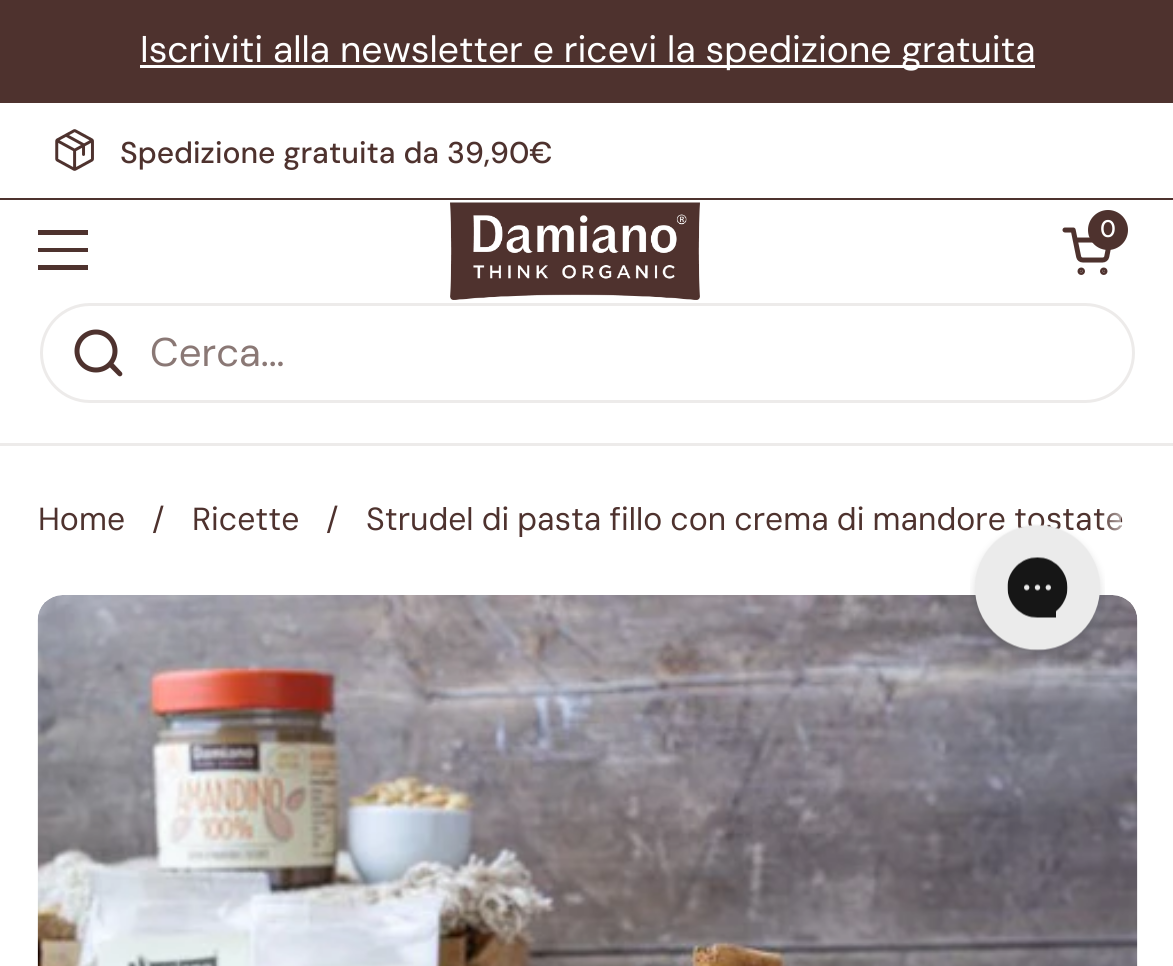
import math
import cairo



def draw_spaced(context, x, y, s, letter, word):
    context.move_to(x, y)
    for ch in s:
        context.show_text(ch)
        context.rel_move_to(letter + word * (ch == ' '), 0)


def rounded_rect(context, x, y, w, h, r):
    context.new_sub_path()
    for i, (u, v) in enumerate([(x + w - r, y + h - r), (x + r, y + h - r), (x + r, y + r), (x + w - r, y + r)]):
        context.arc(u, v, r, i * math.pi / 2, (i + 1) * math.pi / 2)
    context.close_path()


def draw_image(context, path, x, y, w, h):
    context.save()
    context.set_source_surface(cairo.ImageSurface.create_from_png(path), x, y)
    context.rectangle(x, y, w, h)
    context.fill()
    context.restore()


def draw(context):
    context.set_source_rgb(1, 1, 1)
    context.paint()
    context.set_source_rgb(78 / 255, 50 / 255, 46 / 255)
    context.rectangle(0, 0, 1173, 103)
    context.fill()
    context.set_source_rgb(1, 1, 1)
    context.rectangle(140, 65, 895, 3)
    context.fill()
    context.set_source_rgb(78 / 255, 50 / 255, 46 / 255)
    context.rectangle(0, 198, 1173, 2)
    context.fill()
    draw_image(context, "images/1.png", 55, 129, 39, 42)
    context.rectangle(38, 230, 50, 5)
    context.fill()
    context.rectangle(38, 248, 50, 4)
    context.fill()
    context.rectangle(38, 265, 50, 5)
    context.fill()
    draw_image(context, "images/2.png", 450, 202, 250, 98)
    draw_image(context, "images/3.png", 1062, 227, 49, 48)
    context.arc(1108, 230, 20, 0, 2 * math.pi)
    context.fill()
    context.set_source_rgb(237 / 255, 235 / 255, 234 / 255)
    context.rectangle(0, 443, 1173, 3)
    context.fill()
    rounded_rect(context, 41.5, 304.5, 1092, 97, 48.5)
    context.set_line_width(3)
    context.stroke()
    context.arc(96, 351, 19, 0, 2 * math.pi)
    context.set_source_rgb(78 / 255, 50 / 255, 46 / 255)
    context.set_line_width(5)
    context.stroke()
    context.new_path()
    context.move_to(113, 363)
    context.line_to(111, 361.5)
    context.line_to(107.5, 365)
    context.line_to(109.5, 367)
    context.close_path()
    context.move_to(118, 375.5)
    context.curve_to(120.5, 378, 124, 374.5, 121.5, 372)
    context.close_path()
    context.move_to(109.5, 367)
    context.line_to(118, 375.5)
    context.line_to(121.5, 372)
    context.line_to(113, 363)
    context.close_path()
    context.fill()
    draw_image(context, "images/4.png", 37, 595, 1101, 371)
    context.select_font_face("DM Sans")
    context.set_font_size(37.2)
    context.set_source_rgb(1, 1, 1)
    context.move_to(140, 62)
    context.show_text("Iscriviti alla newsletter e ricevi la spedizione gratuita")
    context.select_font_face("DM Sans Medium")
    context.set_font_size(30)
    context.set_source_rgb(78 / 255, 50 / 255, 46 / 255)
    context.move_to(120, 163)
    context.show_text("Spedizione gratuita da 39,90€")
    context.select_font_face("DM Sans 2 Medium")
    context.set_font_size(24)
    context.set_source_rgb(1, 1, 1)
    context.move_to(1100, 237)
    context.show_text("0")
    context.select_font_face("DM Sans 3")
    context.set_font_size(40)
    context.set_source_rgb(138 / 255, 120 / 255, 117 / 255)
    context.move_to(150, 366)
    context.show_text("Cerca...")
    context.select_font_face("DM Sans 2")
    context.set_font_size(31.9)
    context.set_source_rgb(78 / 255, 50 / 255, 46 / 255)
    context.move_to(38, 530)
    context.show_text("Home")
    context.move_to(152, 530)
    context.show_text("/")
    context.move_to(192, 530)
    context.show_text("Ricette")
    context.move_to(326, 530)
    context.show_text("/")
    draw_spaced(context, 366, 530, "Strudel di pasta fillo con crema di mandore tostate", 0, -0.5)
    gradient = cairo.LinearGradient(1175, 520, 1100, 520)
    gradient.add_color_stop_rgba(0.5, 1, 1, 1, 1)
    gradient.add_color_stop_rgba(1, 1, 1, 1, 0)
    context.set_source(gradient)
    context.rectangle(1101, 512, 20, 19)
    context.fill()
    draw_image(context, "images/5.png", 970, 524, 135, 135)


surface = cairo.ImageSurface(cairo.Format.RGB24, 1173, 966)
context = cairo.Context(surface)
options = cairo.FontOptions()
options.set_hint_metrics(cairo.HintMetrics.OFF)
options.set_hint_style(cairo.HintStyle.NONE)
context.set_font_options(options)
context.set_miter_limit(4)
draw(context)
surface.write_to_png("out.png")
